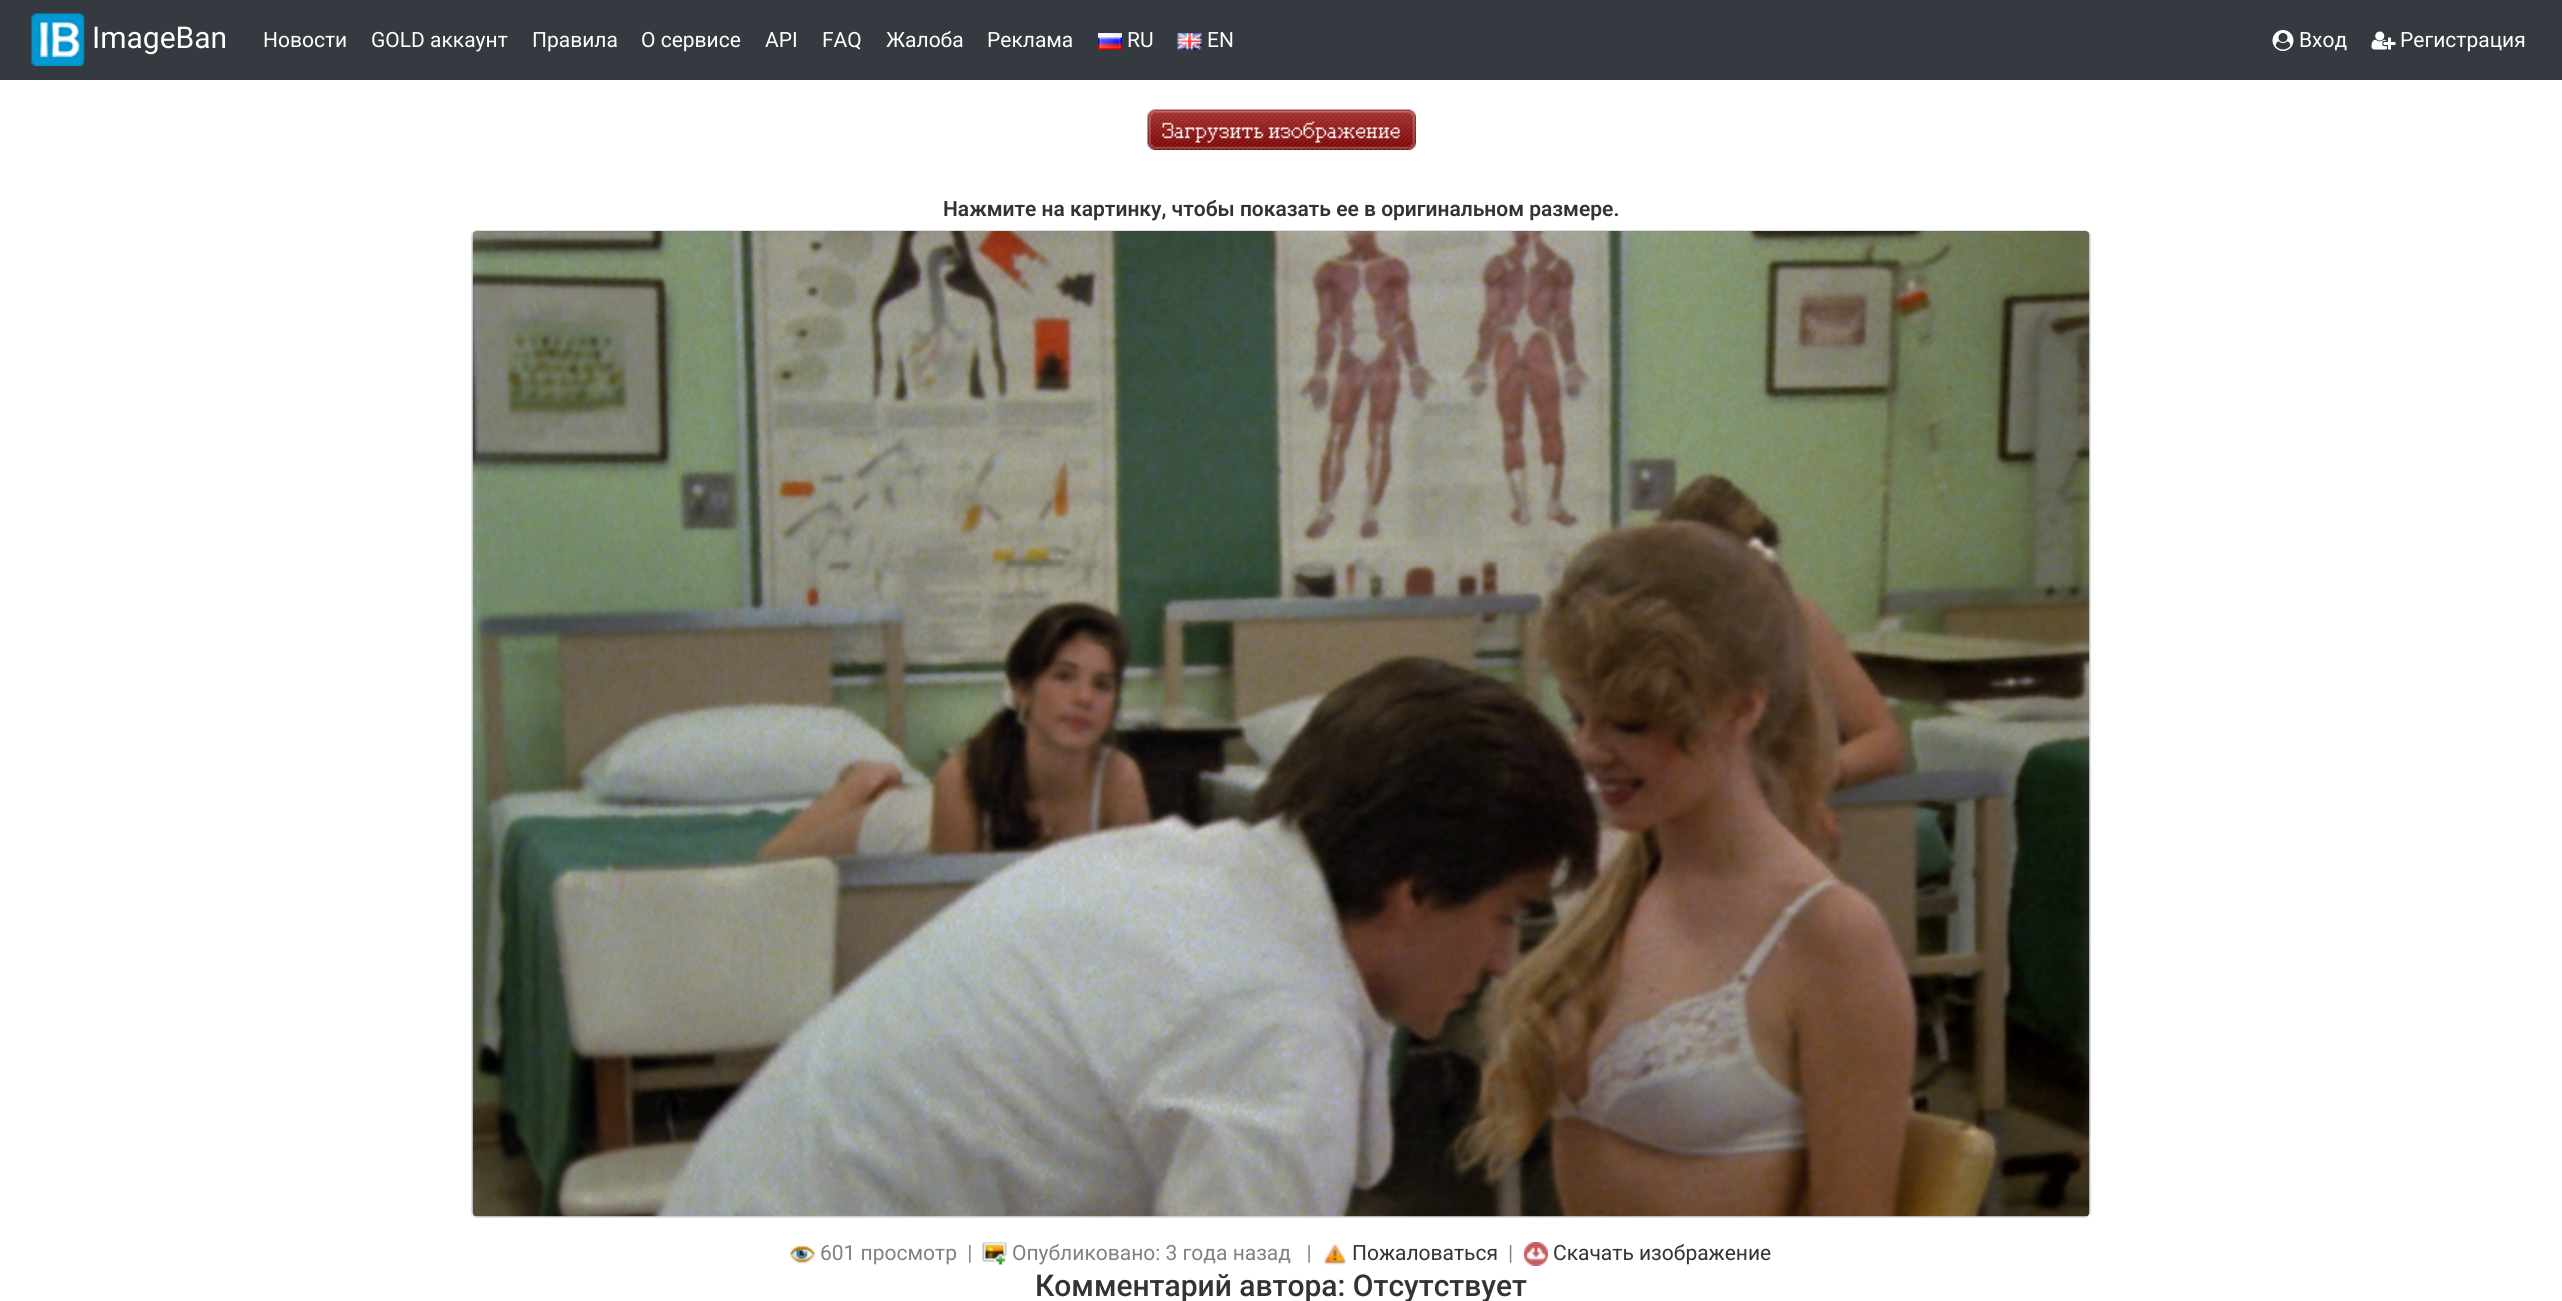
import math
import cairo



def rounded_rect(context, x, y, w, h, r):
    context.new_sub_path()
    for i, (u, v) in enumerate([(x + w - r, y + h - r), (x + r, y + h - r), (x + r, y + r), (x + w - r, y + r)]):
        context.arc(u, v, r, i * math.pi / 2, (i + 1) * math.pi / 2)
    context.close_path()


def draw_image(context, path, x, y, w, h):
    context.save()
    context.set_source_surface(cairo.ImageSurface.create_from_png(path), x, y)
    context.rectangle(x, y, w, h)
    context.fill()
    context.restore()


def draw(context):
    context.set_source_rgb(1, 1, 1)
    context.paint()
    context.set_source_rgb(52 / 255, 58 / 255, 64 / 255)
    context.rectangle(0, 0, 2562, 80)
    context.fill()
    draw_image(context, "images/1.png", 31, 13, 54, 53)
    draw_image(context, "images/2.png", 1098, 33, 24, 17)
    draw_image(context, "images/3.png", 1177, 33, 25, 17)
    draw_image(context, "images/4.png", 2272, 30, 22, 21)
    draw_image(context, "images/5.png", 2371, 31, 25, 19)
    draw_image(context, "images/6.png", 1147, 109, 269, 41)
    rounded_rect(context, 472, 231, 1618, 986, 5)
    context.set_source_rgb(222 / 255, 226 / 255, 230 / 255)
    context.stroke()
    draw_image(context, "images/7.png", 472, 231, 1618, 986)
    draw_image(context, "images/8.png", 790, 1246, 25, 18)
    draw_image(context, "images/9.png", 982, 1242, 25, 23)
    draw_image(context, "images/10.png", 1324, 1244, 22, 21)
    draw_image(context, "images/11.png", 1524, 1242, 24, 24)
    context.select_font_face("Roboto")
    context.set_font_size(30)
    context.set_source_rgb(1, 1, 1)
    context.move_to(92, 48)
    context.show_text("ImageBan")
    context.set_font_size(21)
    context.move_to(263, 47)
    context.show_text("Новости")
    context.move_to(371, 47)
    context.show_text("GOLD аккаунт")
    context.move_to(532, 47)
    context.show_text("Правила")
    context.move_to(641, 47)
    context.show_text("О сервисе")
    context.move_to(765, 47)
    context.show_text("API")
    context.move_to(822, 47)
    context.show_text("FAQ")
    context.move_to(886, 47)
    context.show_text("Жалоба")
    context.move_to(987, 47)
    context.show_text("Реклама")
    context.move_to(1127, 47)
    context.show_text("RU")
    context.move_to(1207, 47)
    context.show_text("EN")
    context.move_to(2299, 47)
    context.show_text("Вход")
    context.move_to(2400, 47)
    context.show_text("Регистрация")
    context.select_font_face("Roboto SemiBold")
    context.set_source_rgb(51 / 255, 51 / 255, 51 / 255)
    context.move_to(943, 216)
    context.show_text("Нажмите на картинку, чтобы показать ее в оригинальном размере.")
    context.select_font_face("Roboto")
    context.set_source_rgb(129 / 255, 129 / 255, 129 / 255)
    context.move_to(820, 1260)
    context.show_text("601 просмотр  |")
    context.move_to(1012, 1260)
    context.show_text("Опубликовано: 3 года назад   |")
    context.set_source_rgb(51 / 255, 51 / 255, 51 / 255)
    context.move_to(1352, 1260)
    context.show_text("Пожаловаться")
    context.set_source_rgb(129 / 255, 129 / 255, 129 / 255)
    context.move_to(1508, 1260)
    context.show_text("|")
    context.set_source_rgb(51 / 255, 51 / 255, 51 / 255)
    context.move_to(1553, 1260)
    context.show_text("Скачать изображение")
    context.select_font_face("Roboto Medium")
    context.set_font_size(30)
    context.move_to(1035, 1296)
    context.show_text("Комментарий автора: Отсутствует")


surface = cairo.ImageSurface(cairo.Format.RGB24, 2562, 1301)
context = cairo.Context(surface)
options = cairo.FontOptions()
options.set_hint_metrics(cairo.HintMetrics.OFF)
options.set_hint_style(cairo.HintStyle.NONE)
context.set_font_options(options)
context.set_miter_limit(4)
draw(context)
surface.write_to_png("out.png")
